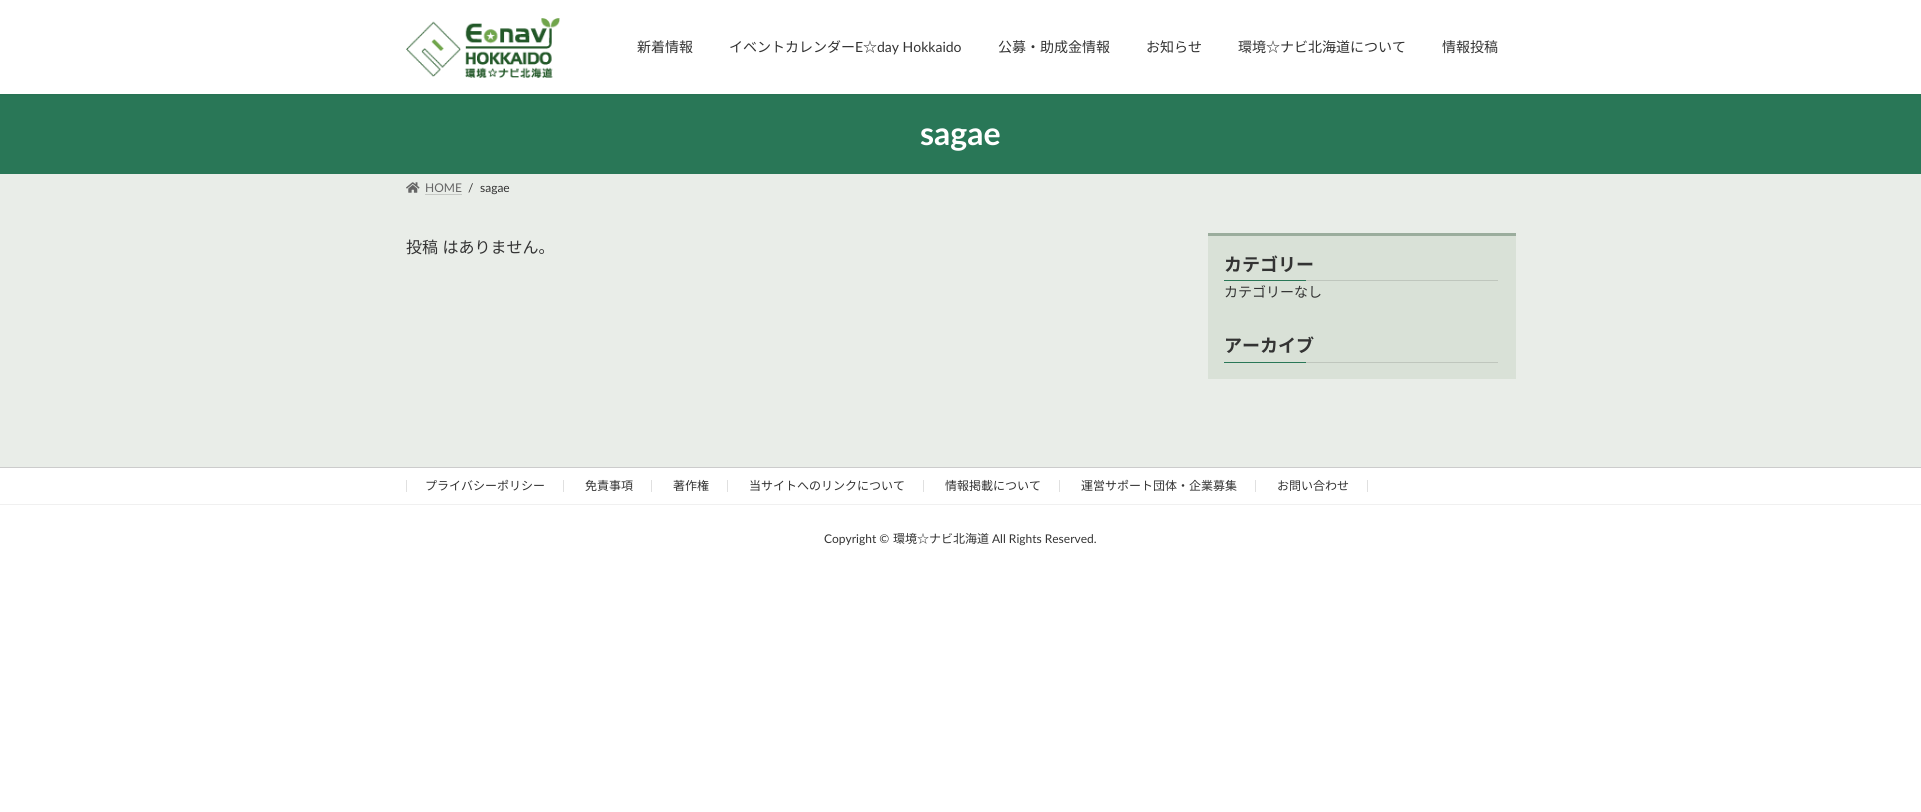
import math
import cairo



def draw_spaced(context, x, y, s, letter, word):
    context.move_to(x, y)
    for ch in s:
        context.show_text(ch)
        context.rel_move_to(letter + word * (ch == ' '), 0)


def rounded_rect(context, x, y, w, h, r):
    context.new_sub_path()
    for i, (u, v) in enumerate([(x + w - r, y + h - r), (x + r, y + h - r), (x + r, y + r), (x + w - r, y + r)]):
        context.arc(u, v, r, i * math.pi / 2, (i + 1) * math.pi / 2)
    context.close_path()


def draw_shadow(context, x, y, w, h, r, blur, alpha):
    context.push_group_with_content(cairo.Content.ALPHA)
    context.set_operator(cairo.Operator.SOURCE)
    for i in range(15, -16, -2):
        e = blur * i / 6
        if min(w, h) + 2 * e > 0:
            context.set_source_rgba(0, 0, 0, alpha * math.erfc((i - 1) / 8.5) / 2)
            rounded_rect(context, x - e, y - e, w + 2 * e, h + 2 * e, max(0, min(r + e + blur * .6, min(w, h) / 2 + e)))
            context.fill()
    context.mask(context.pop_group())


def draw_image(context, path, x, y, w, h):
    context.save()
    context.set_source_surface(cairo.ImageSurface.create_from_png(path), x, y)
    context.rectangle(x, y, w, h)
    context.fill()
    context.restore()


def draw(context):
    context.set_source_rgb(1, 1, 1)
    context.paint()
    context.set_source_rgb(233 / 255, 237 / 255, 232 / 255)
    context.rectangle(0, 174, 1921, 293)
    context.fill()
    context.set_source_rgb(41 / 255, 119 / 255, 87 / 255)
    context.rectangle(0, 94, 1921, 80)
    context.fill()
    context.set_source_rgb(0, 0, 0)
    draw_shadow(context, 0, 1, 1921, 94, 0, 1.5, 0.05)
    context.set_source_rgb(1, 1, 1)
    context.rectangle(0, 0, 1921, 94)
    context.fill()
    draw_image(context, "images/1.png", 406, 18, 154, 60)
    draw_image(context, "images/2.png", 406, 182, 14, 11)
    context.new_path()
    context.move_to(425.5, 194.5)
    context.line_to(462, 194.5)
    context.set_source_rgb(163 / 255, 166 / 255, 162 / 255)
    context.set_line_width(1)
    context.set_dash([1, 1])
    context.stroke()
    context.set_source_rgb(217 / 255, 225 / 255, 215 / 255)
    context.rectangle(1208, 236, 308, 143)
    context.fill()
    context.set_source_rgb(155 / 255, 173 / 255, 157 / 255)
    context.rectangle(1208, 233, 308, 3)
    context.fill()
    context.set_source_rgb(191 / 255, 198 / 255, 189 / 255)
    context.rectangle(1306, 280, 192, 1)
    context.fill()
    context.set_source_rgb(41 / 255, 119 / 255, 87 / 255)
    context.rectangle(1224, 280, 82, 1)
    context.fill()
    context.set_source_rgb(191 / 255, 198 / 255, 189 / 255)
    context.rectangle(1306, 362, 192, 1)
    context.fill()
    context.set_source_rgb(41 / 255, 119 / 255, 87 / 255)
    context.rectangle(1224, 362, 82, 1)
    context.fill()
    context.set_source_rgb(204 / 255, 204 / 255, 204 / 255)
    context.rectangle(0, 467, 1921, 1)
    context.fill()
    context.set_source_rgb(240 / 255, 240 / 255, 240 / 255)
    context.rectangle(0, 504, 1921, 1)
    context.fill()
    context.set_source_rgb(224 / 255, 224 / 255, 224 / 255)
    context.rectangle(563, 480, 1, 12)
    context.fill()
    context.rectangle(406, 480, 1, 12)
    context.fill()
    context.rectangle(651, 480, 1, 12)
    context.fill()
    context.rectangle(727, 480, 1, 12)
    context.fill()
    context.rectangle(923, 480, 1, 12)
    context.fill()
    context.rectangle(1059, 480, 1, 12)
    context.fill()
    context.rectangle(1255, 480, 1, 12)
    context.fill()
    context.rectangle(1367, 480, 1, 12)
    context.fill()
    context.select_font_face("Noto Sans JP")
    context.set_font_size(14)
    context.set_source_rgb(51 / 255, 51 / 255, 51 / 255)
    context.move_to(637, 52)
    context.show_text("新着情報")
    context.move_to(729, 52)
    context.show_text("イベントカレンダー")
    context.select_font_face("Lato")
    context.move_to(855, 52)
    context.show_text("E")
    context.select_font_face("Noto Sans JP")
    context.move_to(863, 52)
    context.show_text("☆")
    context.select_font_face("Lato")
    context.move_to(877, 52)
    context.show_text("day Hokkaido")
    context.select_font_face("Noto Sans JP")
    context.move_to(998, 52)
    context.show_text("公募・助成金情報")
    context.move_to(1146, 52)
    context.show_text("お知らせ")
    context.move_to(1238, 52)
    context.show_text("環境☆ナビ北海道について")
    context.move_to(1442, 52)
    context.show_text("情報投稿")
    context.select_font_face("Lato", cairo.FontSlant.NORMAL, cairo.FontWeight.BOLD)
    context.set_font_size(32)
    context.set_source_rgb(1, 1, 1)
    context.move_to(920, 145)
    context.show_text("sagae")
    context.select_font_face("Lato")
    context.set_font_size(12)
    context.set_source_rgb(102 / 255, 102 / 255, 102 / 255)
    context.move_to(425, 192)
    context.show_text("HOME")
    context.set_source_rgb(51 / 255, 51 / 255, 51 / 255)
    context.move_to(468, 192)
    context.show_text("/")
    context.move_to(480, 192)
    context.show_text("sagae")
    context.select_font_face("Noto Sans JP")
    context.set_font_size(16)
    draw_spaced(context, 406, 253, "投稿 はありません。", 0, 1)
    context.select_font_face("Noto Sans JP", cairo.FontSlant.NORMAL, cairo.FontWeight.BOLD)
    context.set_font_size(18)
    context.move_to(1224, 271)
    context.show_text("カテゴリー")
    context.select_font_face("Noto Sans JP")
    context.set_font_size(14)
    context.move_to(1224, 297)
    context.show_text("カテゴリーなし")
    context.select_font_face("Noto Sans JP", cairo.FontSlant.NORMAL, cairo.FontWeight.BOLD)
    context.set_font_size(18)
    context.move_to(1224, 352)
    context.show_text("アーカイブ")
    context.select_font_face("Noto Sans JP")
    context.set_font_size(12)
    context.move_to(425, 490)
    context.show_text("プライバシーポリシー")
    context.move_to(585, 490)
    context.show_text("免責事項")
    context.move_to(673, 490)
    context.show_text("著作権")
    context.move_to(749, 490)
    context.show_text("当サイトへのリンクについて")
    context.move_to(945, 490)
    context.show_text("情報掲載について")
    context.move_to(1081, 490)
    context.show_text("運営サポート団体・企業募集")
    context.move_to(1277, 490)
    context.show_text("お問い合わせ")
    context.select_font_face("Lato")
    context.move_to(824, 543)
    context.show_text("Copyright ©")
    context.select_font_face("Noto Sans JP")
    context.move_to(893, 543)
    context.show_text("環境☆ナビ北海道")
    context.select_font_face("Lato")
    context.move_to(992, 543)
    context.show_text("All Rights Reserved.")


surface = cairo.ImageSurface(cairo.Format.RGB24, 1921, 812)
context = cairo.Context(surface)
options = cairo.FontOptions()
options.set_hint_metrics(cairo.HintMetrics.OFF)
options.set_hint_style(cairo.HintStyle.NONE)
context.set_font_options(options)
context.set_miter_limit(4)
draw(context)
surface.write_to_png("out.png")
